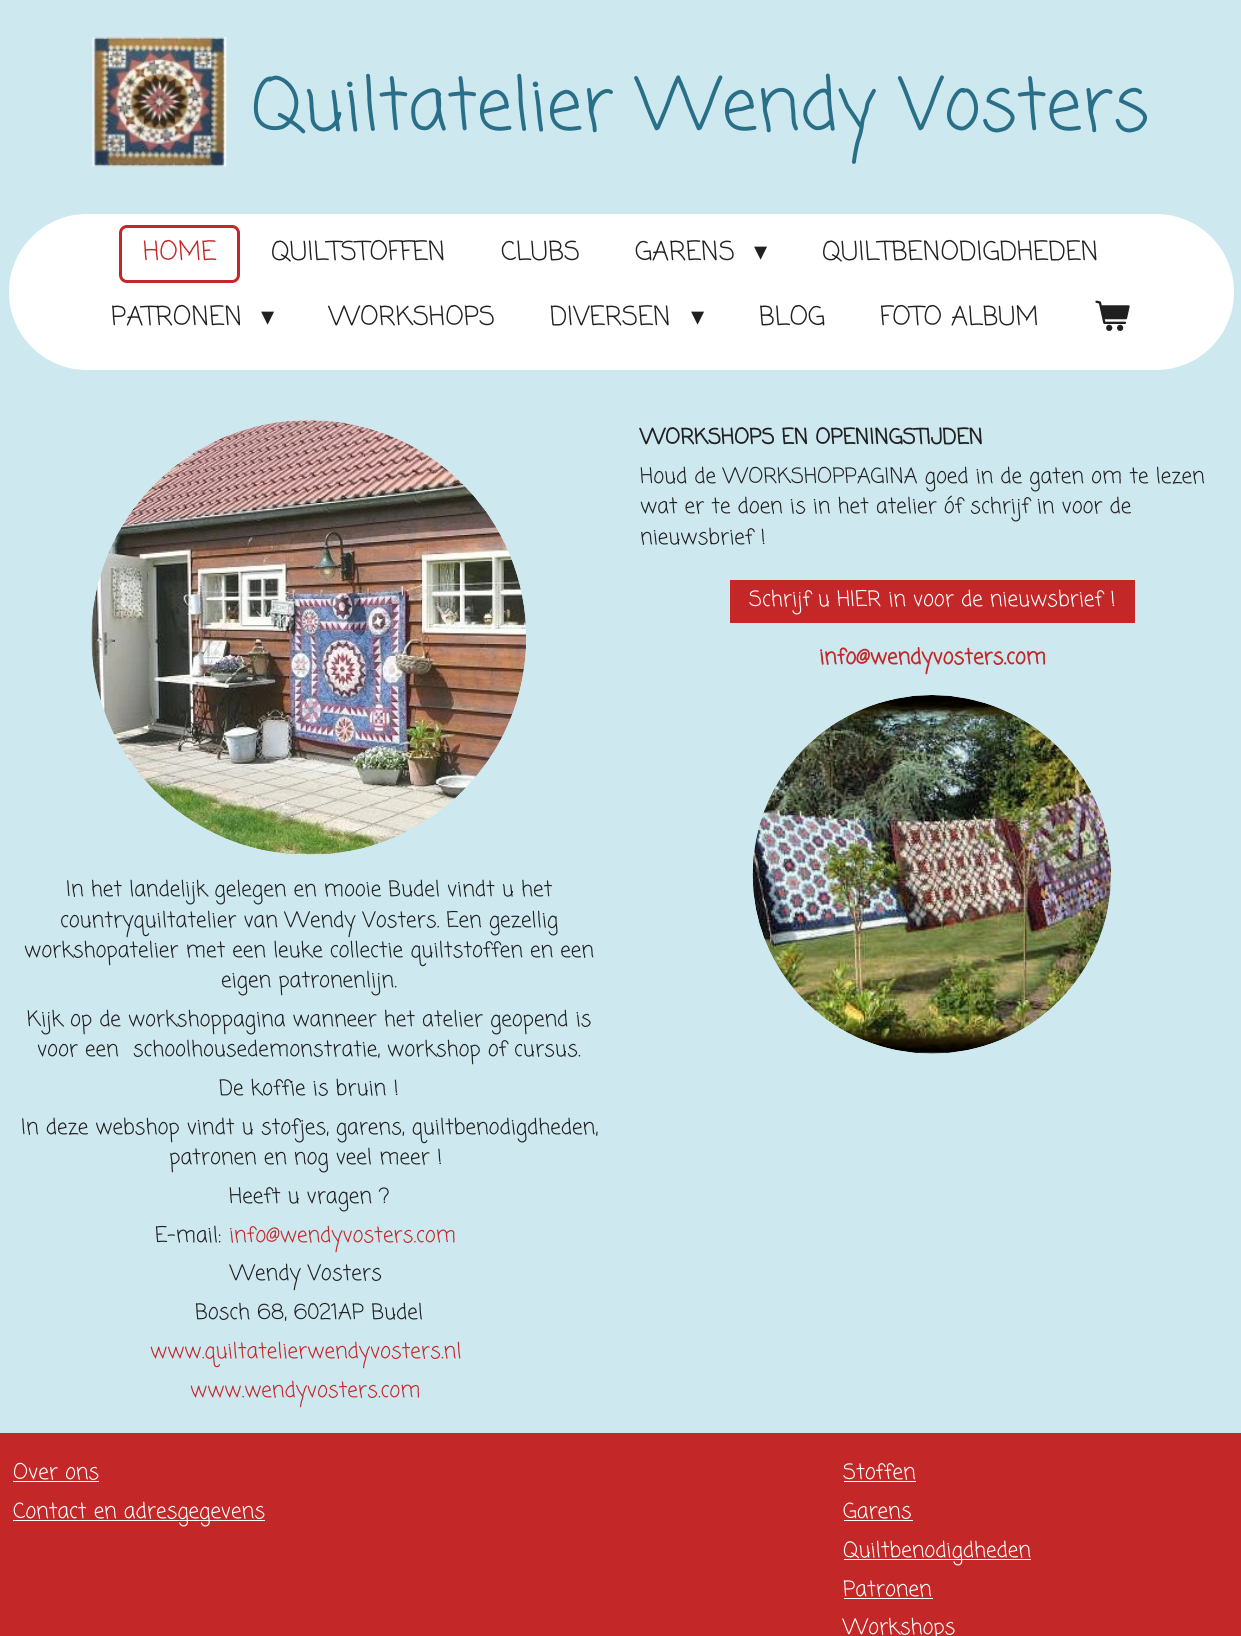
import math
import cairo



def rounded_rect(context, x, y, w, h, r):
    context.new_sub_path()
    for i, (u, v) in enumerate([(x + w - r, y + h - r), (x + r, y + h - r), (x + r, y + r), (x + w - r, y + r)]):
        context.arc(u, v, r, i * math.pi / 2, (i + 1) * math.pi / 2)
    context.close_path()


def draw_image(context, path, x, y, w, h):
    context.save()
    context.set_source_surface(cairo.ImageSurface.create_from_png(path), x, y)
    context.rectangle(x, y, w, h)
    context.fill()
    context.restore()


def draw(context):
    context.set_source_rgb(206 / 255, 232 / 255, 240 / 255)
    context.paint()
    draw_image(context, "images/1.png", 92, 37, 135, 130)
    context.set_source_rgb(1, 1, 1)
    rounded_rect(context, 9, 214, 1225, 156, 78)
    context.fill()
    rounded_rect(context, 120.5, 226.5, 118, 55, 6.5)
    context.set_source_rgb(196 / 255, 39 / 255, 39 / 255)
    context.set_line_width(3)
    context.stroke()
    draw_image(context, "images/2.png", 1095, 300, 35, 31)
    context.rectangle(730, 580, 405, 43)
    context.fill()
    draw_image(context, "images/3.png", 752, 695, 359, 359)
    draw_image(context, "images/4.png", 91, 420, 435, 435)
    context.rectangle(0, 1433, 1241, 203)
    context.fill()
    context.set_source_rgb(1, 1, 1)
    context.rectangle(13, 1481, 86, 1)
    context.fill()
    context.rectangle(13, 1520, 252, 1)
    context.fill()
    context.rectangle(844, 1481, 72, 1)
    context.fill()
    context.rectangle(844, 1520, 69, 1)
    context.fill()
    context.rectangle(844, 1559, 187, 1)
    context.fill()
    context.rectangle(844, 1598, 89, 1)
    context.fill()
    context.select_font_face("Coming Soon")
    context.set_font_size(71.75)
    context.set_source_rgb(41 / 255, 111 / 255, 135 / 255)
    context.move_to(251, 129)
    context.show_text("Quiltatelier Wendy Vosters")
    context.set_font_size(26.25)
    context.set_source_rgb(196 / 255, 39 / 255, 39 / 255)
    context.move_to(143, 260)
    context.show_text("HOME")
    context.set_source_rgb(32 / 255, 32 / 255, 32 / 255)
    context.move_to(271, 260)
    context.show_text("QUILTSTOFFEN")
    context.move_to(501, 260)
    context.show_text("CLUBS")
    context.move_to(635, 260)
    context.show_text("GARENS")
    context.select_font_face("DejaVu Sans")
    context.move_to(754, 260)
    context.show_text("▾")
    context.select_font_face("Coming Soon")
    context.move_to(822, 260)
    context.show_text("QUILTBENODIGDHEDEN")
    context.move_to(111, 325)
    context.show_text("PATRONEN")
    context.select_font_face("DejaVu Sans")
    context.move_to(261, 325)
    context.show_text("▾")
    context.select_font_face("Coming Soon")
    context.move_to(329, 325)
    context.show_text("WORKSHOPS")
    context.move_to(550, 325)
    context.show_text("DIVERSEN")
    context.select_font_face("DejaVu Sans")
    context.move_to(691, 325)
    context.show_text("▾")
    context.select_font_face("Coming Soon")
    context.move_to(759, 325)
    context.show_text("BLOG")
    context.move_to(880, 325)
    context.show_text("FOTO ALBUM")
    context.select_font_face("Coming Soon", cairo.FontSlant.NORMAL, cairo.FontWeight.BOLD)
    context.set_font_size(21.25)
    context.move_to(640, 444)
    context.show_text("WORKSHOPS EN OPENINGSTIJDEN")
    context.select_font_face("Coming Soon")
    context.move_to(640, 483)
    context.show_text("Houd de WORKSHOPPAGINA goed in de gaten om te lezen")
    context.move_to(640, 513)
    context.show_text("wat er te doen is in het atelier óf schrijf in voor de")
    context.move_to(640, 544)
    context.show_text("nieuwsbrief !")
    context.set_source_rgb(1, 1, 1)
    context.move_to(749, 606)
    context.show_text("Schrijf u HIER in voor de nieuwsbrief !")
    context.select_font_face("Coming Soon", cairo.FontSlant.NORMAL, cairo.FontWeight.BOLD)
    context.set_source_rgb(196 / 255, 39 / 255, 39 / 255)
    context.move_to(819, 664)
    context.show_text("info@wendyvosters.com")
    context.select_font_face("Coming Soon")
    context.set_source_rgb(32 / 255, 32 / 255, 32 / 255)
    context.move_to(66, 896)
    context.show_text("In het landelijk gelegen en mooie Budel vindt u het")
    context.move_to(60, 927)
    context.show_text("countryquiltatelier van Wendy Vosters. Een gezellig")
    context.move_to(24, 957)
    context.show_text("workshopatelier met een leuke collectie quiltstoffen en een")
    context.move_to(221, 987)
    context.show_text("eigen patronenlijn.")
    context.move_to(27, 1026)
    context.show_text("Kijk op de workshoppagina wanneer het atelier geopend is")
    context.move_to(37, 1056)
    context.show_text("voor een  schoolhousedemonstratie, workshop of cursus.")
    context.move_to(219, 1095)
    context.show_text("De koffie is bruin !")
    context.move_to(21, 1134)
    context.show_text("In deze webshop vindt u stofjes, garens, quiltbenodigdheden,")
    context.move_to(169, 1164)
    context.show_text("patronen en nog veel meer !")
    context.move_to(229, 1203)
    context.show_text("Heeft u vragen ?")
    context.move_to(155, 1242)
    context.show_text("E-mail:")
    context.set_source_rgb(196 / 255, 39 / 255, 39 / 255)
    context.move_to(229, 1242)
    context.show_text("info@wendyvosters.com")
    context.set_source_rgb(32 / 255, 32 / 255, 32 / 255)
    context.move_to(230, 1280)
    context.show_text("Wendy Vosters")
    context.move_to(195, 1319)
    context.show_text("Bosch 68, 6021AP Budel")
    context.set_source_rgb(196 / 255, 39 / 255, 39 / 255)
    context.move_to(150, 1358)
    context.show_text("www.quiltatelierwendyvosters.nl")
    context.move_to(190, 1397)
    context.show_text("www.wendyvosters.com")
    context.set_source_rgb(1, 1, 1)
    context.move_to(13, 1479)
    context.show_text("Over ons")
    context.move_to(13, 1518)
    context.show_text("Contact en adresgegevens")
    context.move_to(843, 1479)
    context.show_text("Stoffen")
    context.move_to(843, 1518)
    context.show_text("Garens")
    context.move_to(843, 1557)
    context.show_text("Quiltbenodigdheden")
    context.move_to(843, 1596)
    context.show_text("Patronen")
    context.move_to(843, 1634)
    context.show_text("Workshops")


surface = cairo.ImageSurface(cairo.Format.RGB24, 1241, 1636)
context = cairo.Context(surface)
options = cairo.FontOptions()
options.set_hint_metrics(cairo.HintMetrics.OFF)
options.set_hint_style(cairo.HintStyle.NONE)
context.set_font_options(options)
context.set_miter_limit(4)
draw(context)
surface.write_to_png("out.png")
